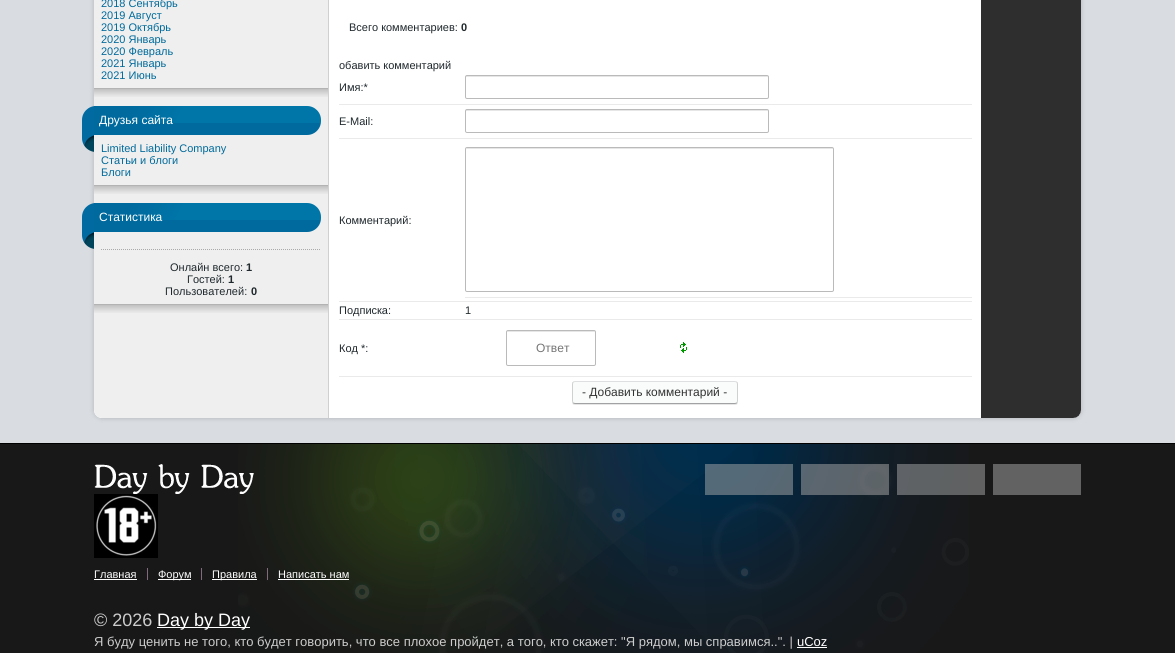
import math
import cairo



def rounded_rect(context, x, y, w, h, r):
    context.new_sub_path()
    for i, (u, v) in enumerate([(x + w - r, y + h - r), (x + r, y + h - r), (x + r, y + r), (x + w - r, y + r)]):
        context.arc(u, v, r, i * math.pi / 2, (i + 1) * math.pi / 2)
    context.close_path()


def draw_shadow(context, x, y, w, h, r, blur, alpha):
    context.push_group_with_content(cairo.Content.ALPHA)
    context.set_operator(cairo.Operator.SOURCE)
    for i in range(15, -16, -2):
        e = blur * i / 6
        if min(w, h) + 2 * e > 0:
            context.set_source_rgba(0, 0, 0, alpha * math.erfc((i - 1) / 8.5) / 2)
            rounded_rect(context, x - e, y - e, w + 2 * e, h + 2 * e, max(0, min(r + e + blur * .6, min(w, h) / 2 + e)))
            context.fill()
    context.mask(context.pop_group())


def draw_image(context, path, x, y, w, h):
    context.save()
    context.set_source_surface(cairo.ImageSurface.create_from_png(path), x, y)
    context.rectangle(x, y, w, h)
    context.fill()
    context.restore()


def draw(context):
    context.set_source_rgb(217 / 255, 221 / 255, 226 / 255)
    context.paint()
    context.set_source_rgb(0, 0, 0)
    draw_shadow(context, 94, -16, 987, 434, 8, 2.5, 0.2)
    context.set_source_rgb(1, 1, 1)
    context.new_path()
    context.move_to(98, -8)
    context.line_to(1081, -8)
    context.line_to(1081, 410)
    context.curve_to(1081, 414.5, 1077.5, 418, 1073, 418)
    context.line_to(102, 418)
    context.curve_to(97.5, 418, 94, 414.5, 94, 410)
    context.line_to(94, -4)
    context.curve_to(94, -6, 96, -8, 98, -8)
    context.close_path()
    context.fill()
    draw_image(context, "images/1.png", 94, 0, 987, 418)
    draw_image(context, "images/2.png", 94, 88, 234, 9)
    draw_image(context, "images/3.png", 94, 106, 227, 29)
    draw_image(context, "images/4.png", 82, 106, 12, 46)
    draw_image(context, "images/2.png", 94, 185, 234, 9)
    draw_image(context, "images/3.png", 94, 203, 227, 29)
    draw_image(context, "images/4.png", 82, 203, 12, 46)
    context.new_path()
    context.move_to(101, 249.5)
    context.line_to(321, 249.5)
    context.set_source_rgb(170 / 255, 170 / 255, 170 / 255)
    context.set_line_width(1)
    context.set_dash([1, 1])
    context.stroke()
    draw_image(context, "images/2.png", 94, 304, 234, 9)
    context.set_source_rgb(234 / 255, 234 / 255, 234 / 255)
    context.rectangle(339, 104, 633, 1)
    context.fill()
    context.set_source_rgb(230 / 255, 230 / 255, 230 / 255)
    context.new_path()
    context.move_to(467, 77)
    context.line_to(767, 77)
    context.curve_to(768, 77, 768, 77, 768, 78)
    context.curve_to(768, 77, 768, 76, 767, 76)
    context.line_to(466, 76)
    context.line_to(466, 78)
    context.curve_to(466, 77, 466, 77, 467, 77)
    context.close_path()
    context.fill()
    rounded_rect(context, 465.5, 75.5, 303, 23, 1.5)
    context.set_source_rgb(186 / 255, 186 / 255, 186 / 255)
    context.set_dash([])
    context.stroke()
    context.set_source_rgb(234 / 255, 234 / 255, 234 / 255)
    context.rectangle(339, 138, 633, 1)
    context.fill()
    context.set_source_rgb(230 / 255, 230 / 255, 230 / 255)
    context.new_path()
    context.move_to(467, 111)
    context.line_to(767, 111)
    context.curve_to(768, 111, 768, 111, 768, 112)
    context.curve_to(768, 111, 768, 110, 767, 110)
    context.line_to(466, 110)
    context.line_to(466, 112)
    context.curve_to(466, 111, 466, 111, 467, 111)
    context.close_path()
    context.fill()
    rounded_rect(context, 465.5, 109.5, 303, 23, 1.5)
    context.set_source_rgb(186 / 255, 186 / 255, 186 / 255)
    context.stroke()
    context.set_source_rgb(234 / 255, 234 / 255, 234 / 255)
    context.rectangle(339, 301, 633, 1)
    context.fill()
    context.rectangle(465, 297, 507, 1)
    context.fill()
    context.set_source_rgb(230 / 255, 230 / 255, 230 / 255)
    context.new_path()
    context.move_to(467, 149)
    context.line_to(832, 149)
    context.curve_to(833, 149, 833, 149, 833, 150)
    context.curve_to(833, 149, 833, 148, 832, 148)
    context.line_to(467, 148)
    context.line_to(466, 149)
    context.line_to(466, 150)
    context.curve_to(466, 149, 466, 149, 467, 149)
    context.close_path()
    context.fill()
    rounded_rect(context, 465.5, 147.5, 368, 144, 1.5)
    context.set_source_rgb(186 / 255, 186 / 255, 186 / 255)
    context.stroke()
    context.set_source_rgb(234 / 255, 234 / 255, 234 / 255)
    context.rectangle(339, 319, 633, 1)
    context.fill()
    context.rectangle(339, 376, 633, 1)
    context.fill()
    context.set_source_rgb(230 / 255, 230 / 255, 230 / 255)
    context.new_path()
    context.move_to(508, 332)
    context.line_to(594, 332)
    context.curve_to(595, 332, 595, 332, 595, 333)
    context.curve_to(595, 332, 595, 331, 594, 331)
    context.line_to(508, 331)
    context.curve_to(507, 331, 507, 332, 507, 333)
    context.curve_to(507, 332, 507, 332, 508, 332)
    context.close_path()
    context.fill()
    rounded_rect(context, 506.5, 330.5, 89, 35, 1.5)
    context.set_source_rgb(186 / 255, 186 / 255, 186 / 255)
    context.stroke()
    draw_image(context, "images/5.png", 680, 342, 7, 11)
    context.set_source_rgb(230 / 255, 230 / 255, 230 / 255)
    context.new_path()
    context.move_to(572, 401)
    context.line_to(572, 402)
    context.curve_to(572, 404, 573, 405, 575, 405)
    context.line_to(735, 405)
    context.curve_to(737, 405, 738, 404, 738, 402)
    context.line_to(738, 401)
    context.curve_to(738, 403, 737, 404, 735, 404)
    context.line_to(575, 404)
    context.curve_to(573, 404, 572, 403, 572, 401)
    context.close_path()
    context.fill()
    context.set_source_rgb(250 / 255, 251 / 255, 251 / 255)
    rounded_rect(context, 572, 381, 166, 23, 3)
    context.fill()
    context.new_path()
    context.move_to(573, 382)
    context.line_to(575, 381.5)
    context.line_to(735, 381.5)
    context.line_to(737, 382)
    context.set_source_rgb(222 / 255, 223 / 255, 224 / 255)
    context.stroke()
    context.new_path()
    context.move_to(737, 382)
    context.curve_to(737, 382.5, 737.5, 383.5, 737.5, 384)
    context.line_to(737.5, 401)
    context.curve_to(737.5, 401.5, 737, 402.5, 737, 403)
    context.set_source_rgb(207 / 255, 208 / 255, 210 / 255)
    context.stroke()
    context.new_path()
    context.move_to(737, 403)
    context.line_to(735, 403.5)
    context.line_to(575, 403.5)
    context.line_to(573, 403)
    context.set_source_rgb(161 / 255, 162 / 255, 164 / 255)
    context.stroke()
    context.new_path()
    context.move_to(573, 403)
    context.curve_to(573, 402.5, 572.5, 401.5, 572.5, 401)
    context.line_to(572.5, 384)
    context.curve_to(572.5, 383.5, 573, 382.5, 573, 382)
    context.set_source_rgb(207 / 255, 208 / 255, 210 / 255)
    context.stroke()
    context.set_source_rgb(24 / 255, 24 / 255, 24 / 255)
    context.rectangle(0, 444, 1175, 209)
    context.fill()
    draw_image(context, "images/6.png", 238, 444, 731, 209)
    context.set_source_rgb(0, 0, 0)
    context.rectangle(0, 443, 1175, 1)
    context.fill()
    draw_image(context, "images/7.png", 94, 464, 160, 30)
    context.set_source_rgba(171 / 255, 171 / 255, 171 / 255, 0.5)
    context.rectangle(705, 464, 88, 31)
    context.fill()
    context.rectangle(801, 464, 88, 31)
    context.fill()
    context.rectangle(897, 464, 88, 31)
    context.fill()
    context.set_source_rgb(98 / 255, 98 / 255, 98 / 255)
    context.rectangle(993, 464, 88, 31)
    context.fill()
    draw_image(context, "images/8.png", 94, 494, 64, 64)
    context.set_source_rgb(1, 1, 1)
    context.rectangle(94, 579, 43, 1)
    context.fill()
    context.set_source_rgb(129 / 255, 107 / 255, 122 / 255)
    context.rectangle(147, 568, 1, 12)
    context.fill()
    context.set_source_rgb(1, 1, 1)
    context.rectangle(158, 579, 33, 1)
    context.fill()
    context.set_source_rgb(129 / 255, 107 / 255, 122 / 255)
    context.rectangle(201, 568, 1, 12)
    context.fill()
    context.set_source_rgb(1, 1, 1)
    context.rectangle(212, 579, 45, 1)
    context.fill()
    context.set_source_rgb(129 / 255, 107 / 255, 122 / 255)
    context.rectangle(267, 568, 1, 12)
    context.fill()
    context.set_source_rgb(1, 1, 1)
    context.rectangle(278, 579, 71, 1)
    context.fill()
    context.rectangle(157, 627, 93, 1)
    context.fill()
    context.rectangle(797, 647, 30, 1)
    context.fill()
    context.select_font_face("Liberation Sans")
    context.set_font_size(11)
    context.set_source_rgb(0, 106 / 255, 155 / 255)
    context.move_to(101, 7)
    context.show_text("2018 Сентябрь")
    context.move_to(101, 19)
    context.show_text("2019 Август")
    context.move_to(101, 31)
    context.show_text("2019 Октябрь")
    context.move_to(101, 43)
    context.show_text("2020 Январь")
    context.move_to(101, 55)
    context.show_text("2020 Февраль")
    context.move_to(101, 67)
    context.show_text("2021 Январь")
    context.move_to(101, 79)
    context.show_text("2021 Июнь")
    context.set_font_size(12)
    context.set_source_rgb(1, 1, 1)
    context.move_to(99, 124)
    context.show_text("Друзья сайта")
    context.set_font_size(11)
    context.set_source_rgb(0, 106 / 255, 155 / 255)
    context.move_to(101, 152)
    context.show_text("Limited Liability Company")
    context.move_to(101, 164)
    context.show_text("Статьи и блоги")
    context.move_to(101, 176)
    context.show_text("Блоги")
    context.set_font_size(12)
    context.set_source_rgb(1, 1, 1)
    context.move_to(99, 221)
    context.show_text("Статистика")
    context.set_font_size(11)
    context.set_source_rgb(31 / 255, 40 / 255, 44 / 255)
    context.move_to(170, 271)
    context.show_text("Онлайн всего:")
    context.select_font_face("Liberation Sans", cairo.FontSlant.NORMAL, cairo.FontWeight.BOLD)
    context.move_to(246, 271)
    context.show_text("1")
    context.select_font_face("Liberation Sans")
    context.move_to(187, 283)
    context.show_text("Гостей:")
    context.select_font_face("Liberation Sans", cairo.FontSlant.NORMAL, cairo.FontWeight.BOLD)
    context.move_to(228, 283)
    context.show_text("1")
    context.select_font_face("Liberation Sans")
    context.move_to(165, 295)
    context.show_text("Пользователей:")
    context.select_font_face("Liberation Sans", cairo.FontSlant.NORMAL, cairo.FontWeight.BOLD)
    context.move_to(251, 295)
    context.show_text("0")
    context.select_font_face("Liberation Sans")
    context.move_to(349, 31)
    context.show_text("Всего комментариев:")
    context.select_font_face("Liberation Sans", cairo.FontSlant.NORMAL, cairo.FontWeight.BOLD)
    context.move_to(461, 31)
    context.show_text("0")
    context.select_font_face("Liberation Sans")
    context.move_to(339, 69)
    context.show_text("обавить комментарий")
    context.move_to(339, 91)
    context.show_text("Имя:*")
    context.move_to(339, 125)
    context.show_text("E-Mail:")
    context.move_to(339, 224)
    context.show_text("Комментарий:")
    context.move_to(339, 314)
    context.show_text("Подписка:")
    context.move_to(465, 314)
    context.show_text("1")
    context.move_to(339, 352)
    context.show_text("Код *:")
    context.set_font_size(12)
    context.set_source_rgb(117 / 255, 117 / 255, 117 / 255)
    context.move_to(536, 352)
    context.show_text("Ответ")
    context.set_source_rgb(51 / 255, 51 / 255, 51 / 255)
    context.move_to(582, 396)
    context.show_text("- Добавить комментарий -")
    context.set_font_size(11)
    context.set_source_rgb(1, 1, 1)
    context.move_to(94, 578)
    context.show_text("Главная")
    context.move_to(158, 578)
    context.show_text("Форум")
    context.move_to(212, 578)
    context.show_text("Правила")
    context.move_to(278, 578)
    context.show_text("Написать нам")
    context.set_font_size(18)
    context.set_source_rgb(204 / 255, 204 / 255, 204 / 255)
    context.move_to(94, 626)
    context.show_text("© 2026")
    context.set_source_rgb(1, 1, 1)
    context.move_to(157, 626)
    context.show_text("Day by Day")
    context.set_font_size(13)
    context.set_source_rgb(204 / 255, 204 / 255, 204 / 255)
    context.move_to(94, 646)
    context.show_text("Я буду ценить не того, кто будет говорить, что все плохое пройдет, а того, кто скажет: \"Я рядом, мы справимся..\". |")
    context.set_source_rgb(1, 1, 1)
    context.move_to(797, 646)
    context.show_text("uCoz")


surface = cairo.ImageSurface(cairo.Format.RGB24, 1175, 653)
context = cairo.Context(surface)
options = cairo.FontOptions()
options.set_hint_metrics(cairo.HintMetrics.OFF)
options.set_hint_style(cairo.HintStyle.NONE)
context.set_font_options(options)
context.set_miter_limit(4)
draw(context)
surface.write_to_png("out.png")
